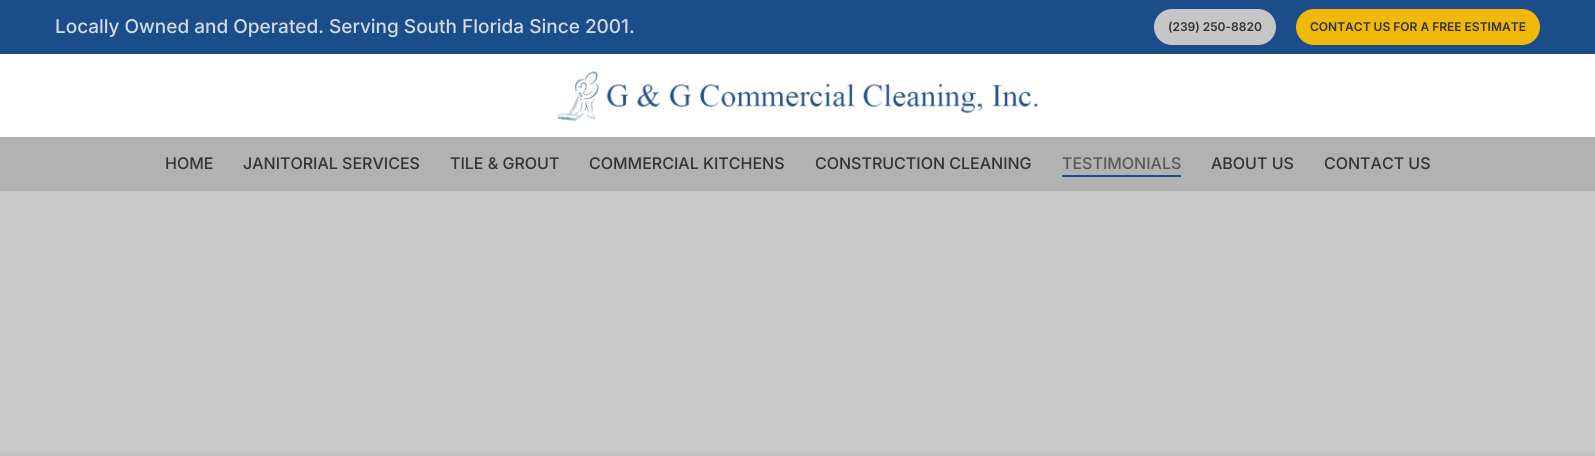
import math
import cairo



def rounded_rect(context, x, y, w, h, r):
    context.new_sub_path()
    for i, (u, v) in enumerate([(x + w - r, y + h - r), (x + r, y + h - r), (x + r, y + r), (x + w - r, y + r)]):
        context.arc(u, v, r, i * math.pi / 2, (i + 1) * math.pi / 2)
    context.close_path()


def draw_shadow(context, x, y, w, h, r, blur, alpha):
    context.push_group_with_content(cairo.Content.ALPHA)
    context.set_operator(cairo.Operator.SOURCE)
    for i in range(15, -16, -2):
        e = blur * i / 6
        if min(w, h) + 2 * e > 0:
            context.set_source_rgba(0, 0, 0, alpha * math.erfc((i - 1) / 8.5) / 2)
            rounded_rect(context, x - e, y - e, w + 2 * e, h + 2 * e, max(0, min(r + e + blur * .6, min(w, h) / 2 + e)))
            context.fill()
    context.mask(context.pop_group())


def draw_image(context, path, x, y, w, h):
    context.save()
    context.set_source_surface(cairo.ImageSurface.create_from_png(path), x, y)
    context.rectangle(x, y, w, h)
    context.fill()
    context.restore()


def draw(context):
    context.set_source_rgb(1, 1, 1)
    context.paint()
    context.set_source_rgb(28 / 255, 77 / 255, 139 / 255)
    context.rectangle(0, 0, 1595, 54)
    context.fill()
    context.set_source_rgb(198 / 255, 198 / 255, 198 / 255)
    rounded_rect(context, 1154, 9, 122, 36, 18)
    context.fill()
    context.set_source_rgb(239 / 255, 185 / 255, 6 / 255)
    rounded_rect(context, 1296, 9, 244, 36, 18)
    context.fill()
    draw_image(context, "images/1.png", 557, 71, 482, 50)
    context.set_source_rgb(178 / 255, 178 / 255, 178 / 255)
    context.rectangle(0, 137, 1595, 54)
    context.fill()
    context.set_source_rgb(28 / 255, 77 / 255, 140 / 255)
    context.rectangle(1062, 175, 119, 2)
    context.fill()
    context.set_source_rgb(204 / 255, 204 / 255, 204 / 255)
    context.rectangle(0, 191, 1595, 265)
    context.fill()
    context.set_source_rgb(0, 0, 0)
    draw_shadow(context, 0, 456, 1595, 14, 0, 4.5, 0.14)
    context.select_font_face("Inter Medium")
    context.set_font_size(19)
    context.set_source_rgb(210 / 255, 219 / 255, 232 / 255)
    context.move_to(55, 33)
    context.show_text("Locally Owned and Operated. Serving South Florida Since 2001.")
    context.select_font_face("Inter SemiBold")
    context.set_font_size(12)
    context.set_source_rgb(51 / 255, 51 / 255, 51 / 255)
    context.move_to(1168, 31)
    context.show_text("(239) 250-8820")
    context.move_to(1310, 31)
    context.show_text("CONTACT US FOR A FREE ESTIMATE")
    context.select_font_face("Inter Medium")
    context.set_font_size(16)
    context.move_to(165, 169)
    context.show_text("HOME")
    context.move_to(243, 169)
    context.show_text("JANITORIAL SERVICES")
    context.move_to(450, 169)
    context.show_text("TILE & GROUT")
    context.move_to(589, 169)
    context.show_text("COMMERCIAL KITCHENS")
    context.move_to(815, 169)
    context.show_text("CONSTRUCTION CLEANING")
    context.set_source_rgb(89 / 255, 89 / 255, 89 / 255)
    context.move_to(1062, 169)
    context.show_text("TESTIMONIALS")
    context.set_source_rgb(51 / 255, 51 / 255, 51 / 255)
    context.move_to(1211, 169)
    context.show_text("ABOUT US")
    context.move_to(1324, 169)
    context.show_text("CONTACT US")


surface = cairo.ImageSurface(cairo.Format.RGB24, 1595, 456)
context = cairo.Context(surface)
options = cairo.FontOptions()
options.set_hint_metrics(cairo.HintMetrics.OFF)
options.set_hint_style(cairo.HintStyle.NONE)
context.set_font_options(options)
context.set_miter_limit(4)
draw(context)
surface.write_to_png("out.png")
